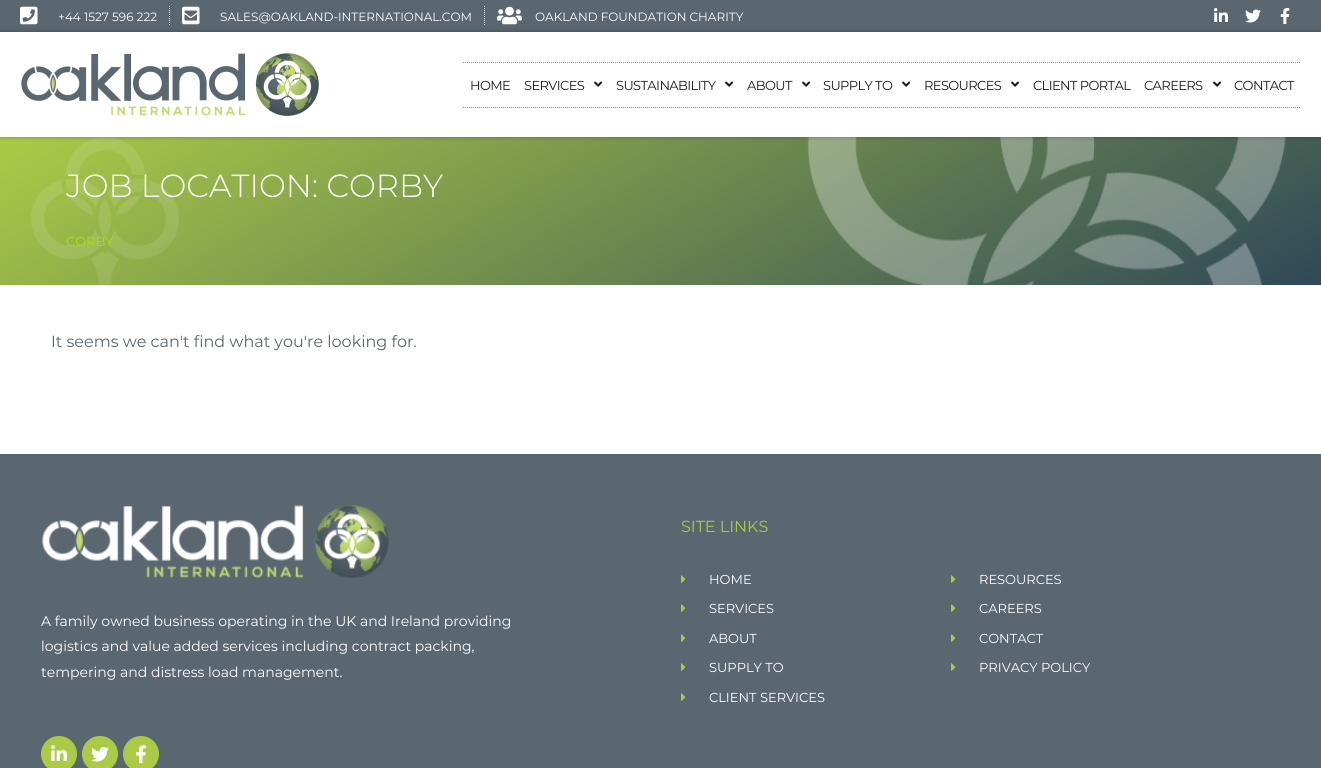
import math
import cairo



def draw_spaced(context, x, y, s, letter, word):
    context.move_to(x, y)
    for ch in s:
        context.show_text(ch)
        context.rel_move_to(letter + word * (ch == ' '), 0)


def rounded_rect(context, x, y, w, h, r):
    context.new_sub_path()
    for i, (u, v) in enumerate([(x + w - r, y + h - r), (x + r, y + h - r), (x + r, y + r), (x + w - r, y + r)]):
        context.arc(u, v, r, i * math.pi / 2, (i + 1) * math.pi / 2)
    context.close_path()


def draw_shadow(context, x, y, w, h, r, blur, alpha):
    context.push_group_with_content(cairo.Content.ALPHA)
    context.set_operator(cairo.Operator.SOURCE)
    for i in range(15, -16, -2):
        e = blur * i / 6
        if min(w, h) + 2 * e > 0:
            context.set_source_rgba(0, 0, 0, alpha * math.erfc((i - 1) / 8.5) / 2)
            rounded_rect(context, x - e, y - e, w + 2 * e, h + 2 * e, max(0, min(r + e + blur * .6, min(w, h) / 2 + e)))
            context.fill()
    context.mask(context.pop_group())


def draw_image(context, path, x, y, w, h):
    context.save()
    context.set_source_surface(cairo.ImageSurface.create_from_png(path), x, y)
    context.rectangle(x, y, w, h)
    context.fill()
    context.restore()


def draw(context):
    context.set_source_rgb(1, 1, 1)
    context.paint()
    context.set_source_rgb(90 / 255, 103 / 255, 113 / 255)
    context.rectangle(0, 0, 1321, 32)
    context.fill()
    draw_image(context, "images/1.png", 20, 6, 18, 19)
    context.new_path()
    context.move_to(169.5, 6)
    context.line_to(169.5, 26)
    context.set_source_rgb(1, 1, 1)
    context.set_line_width(1)
    context.set_dash([1, 1])
    context.stroke()
    draw_image(context, "images/2.png", 182, 6, 18, 19)
    context.new_path()
    context.move_to(484.5, 6)
    context.line_to(484.5, 26)
    context.stroke()
    draw_image(context, "images/3.png", 497, 6, 25, 19)
    draw_image(context, "images/4.png", 1214, 8, 14, 14)
    draw_image(context, "images/5.png", 1245, 9, 16, 14)
    draw_image(context, "images/6.png", 1280, 8, 10, 16)
    gradient = cairo.LinearGradient(463, -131, 858, 553)
    gradient.add_color_stop_rgba(0, 171 / 255, 203 / 255, 70 / 255, 1)
    gradient.add_color_stop_rgba(1, 47 / 255, 72 / 255, 88 / 255, 1)
    context.set_source(gradient)
    context.rectangle(0, 137, 1321, 148)
    context.fill()
    draw_image(context, "images/9.png", 31, 137, 148, 148)
    draw_image(context, "images/10.png", 807, 137, 479, 148)
    context.save()
    context.set_fill_rule(cairo.FillRule.EVEN_ODD)
    context.new_path()
    context.move_to(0, 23)
    context.line_to(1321, 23)
    context.line_to(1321, 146)
    context.line_to(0, 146)
    context.close_path()
    context.move_to(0, 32)
    context.line_to(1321, 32)
    context.line_to(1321, 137)
    context.line_to(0, 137)
    context.close_path()
    context.clip()
    context.set_source_rgb(0, 0, 0)
    draw_shadow(context, 0, 32, 1321, 105, 0, 2.5, 0.3)
    context.restore()
    draw_image(context, "images/7.png", 21, 53, 298, 63)
    context.new_path()
    context.move_to(463, 62.5)
    context.line_to(1301, 62.5)
    context.set_source_rgb(142 / 255, 142 / 255, 142 / 255)
    context.stroke()
    context.new_path()
    context.move_to(463, 107.5)
    context.line_to(1301, 107.5)
    context.stroke()
    draw_image(context, "images/8.png", 594, 81, 9, 6)
    draw_image(context, "images/8.png", 725, 81, 9, 6)
    draw_image(context, "images/8.png", 802, 81, 9, 6)
    draw_image(context, "images/8.png", 902, 81, 9, 6)
    draw_image(context, "images/8.png", 1011, 81, 9, 6)
    draw_image(context, "images/8.png", 1213, 81, 9, 6)
    context.set_source_rgb(90 / 255, 103 / 255, 113 / 255)
    context.rectangle(0, 454, 1321, 314)
    context.fill()
    draw_image(context, "images/11.png", 42, 505, 347, 73)
    context.set_source_rgb(171 / 255, 203 / 255, 70 / 255)
    context.arc(59, 754, 18, 0, 2 * math.pi)
    context.fill()
    draw_image(context, "images/12.png", 51, 745, 16, 16)
    context.arc(100, 754, 18, 0, 2 * math.pi)
    context.fill()
    draw_image(context, "images/13.png", 91, 746, 18, 16)
    context.arc(141, 754, 18, 0, 2 * math.pi)
    context.fill()
    draw_image(context, "images/14.png", 136, 745, 10, 19)
    draw_image(context, "images/15.png", 681, 575, 5, 8)
    draw_image(context, "images/15.png", 681, 604, 5, 8)
    draw_image(context, "images/15.png", 681, 634, 5, 8)
    draw_image(context, "images/15.png", 681, 663, 5, 8)
    draw_image(context, "images/15.png", 681, 693, 5, 8)
    draw_image(context, "images/15.png", 951, 575, 5, 8)
    draw_image(context, "images/15.png", 951, 604, 5, 8)
    draw_image(context, "images/15.png", 951, 634, 5, 8)
    draw_image(context, "images/15.png", 951, 663, 5, 8)
    context.select_font_face("Montserrat")
    context.set_font_size(12)
    context.set_source_rgb(1, 1, 1)
    context.move_to(58, 21)
    context.show_text("+44 1527 596 222")
    context.move_to(220, 21)
    context.show_text("SALES@OAKLAND-INTERNATIONAL.COM")
    context.move_to(535, 21)
    context.show_text("OAKLAND FOUNDATION CHARITY")
    context.set_font_size(13)
    context.set_source_rgb(24 / 255, 25 / 255, 26 / 255)
    draw_spaced(context, 470, 90, "HOME", -0.6, 0)
    draw_spaced(context, 524, 90, "SERVICES", -0.6, 0)
    draw_spaced(context, 616, 90, "SUSTAINABILITY", -0.6, 0)
    draw_spaced(context, 747, 90, "ABOUT", -0.6, 0)
    draw_spaced(context, 823, 90, "SUPPLY TO", -0.6, 0)
    draw_spaced(context, 924, 90, "RESOURCES", -0.6, 0)
    draw_spaced(context, 1033, 90, "CLIENT PORTAL", -0.6, 0)
    draw_spaced(context, 1144, 90, "CAREERS", -0.6, 0)
    draw_spaced(context, 1234, 90, "CONTACT", -0.6, 0)
    context.select_font_face("Montserrat Light")
    context.set_font_size(32)
    context.set_source_rgb(1, 1, 1)
    context.move_to(66, 197)
    context.show_text("JOB LOCATION: CORBY")
    context.select_font_face("Montserrat")
    context.set_font_size(13)
    context.set_source_rgb(166 / 255, 226 / 255, 0)
    context.move_to(66, 246)
    context.show_text("CORBY")
    context.set_font_size(16)
    context.set_source_rgb(90 / 255, 103 / 255, 113 / 255)
    context.move_to(51, 347)
    context.show_text("It seems we can't find what you're looking for.")
    context.set_font_size(14)
    context.set_source_rgb(1, 1, 1)
    context.move_to(41, 626)
    context.show_text("A family owned business operating in the UK and Ireland providing")
    context.move_to(41, 651)
    context.show_text("logistics and value added services including contract packing,")
    context.move_to(41, 677)
    context.show_text("tempering and distress load management.")
    context.set_font_size(16)
    context.set_source_rgb(171 / 255, 203 / 255, 70 / 255)
    context.move_to(681, 532)
    context.show_text("SITE LINKS")
    context.set_font_size(13)
    context.set_source_rgb(1, 1, 1)
    context.move_to(709, 584)
    context.show_text("HOME")
    context.move_to(709, 613)
    context.show_text("SERVICES")
    context.move_to(709, 643)
    context.show_text("ABOUT")
    context.move_to(709, 672)
    context.show_text("SUPPLY TO")
    context.move_to(709, 702)
    context.show_text("CLIENT SERVICES")
    context.move_to(979, 584)
    context.show_text("RESOURCES")
    context.move_to(979, 613)
    context.show_text("CAREERS")
    context.move_to(979, 643)
    context.show_text("CONTACT")
    context.move_to(979, 672)
    context.show_text("PRIVACY POLICY")


surface = cairo.ImageSurface(cairo.Format.RGB24, 1321, 768)
context = cairo.Context(surface)
options = cairo.FontOptions()
options.set_hint_metrics(cairo.HintMetrics.OFF)
options.set_hint_style(cairo.HintStyle.NONE)
context.set_font_options(options)
context.set_miter_limit(4)
draw(context)
surface.write_to_png("out.png")
